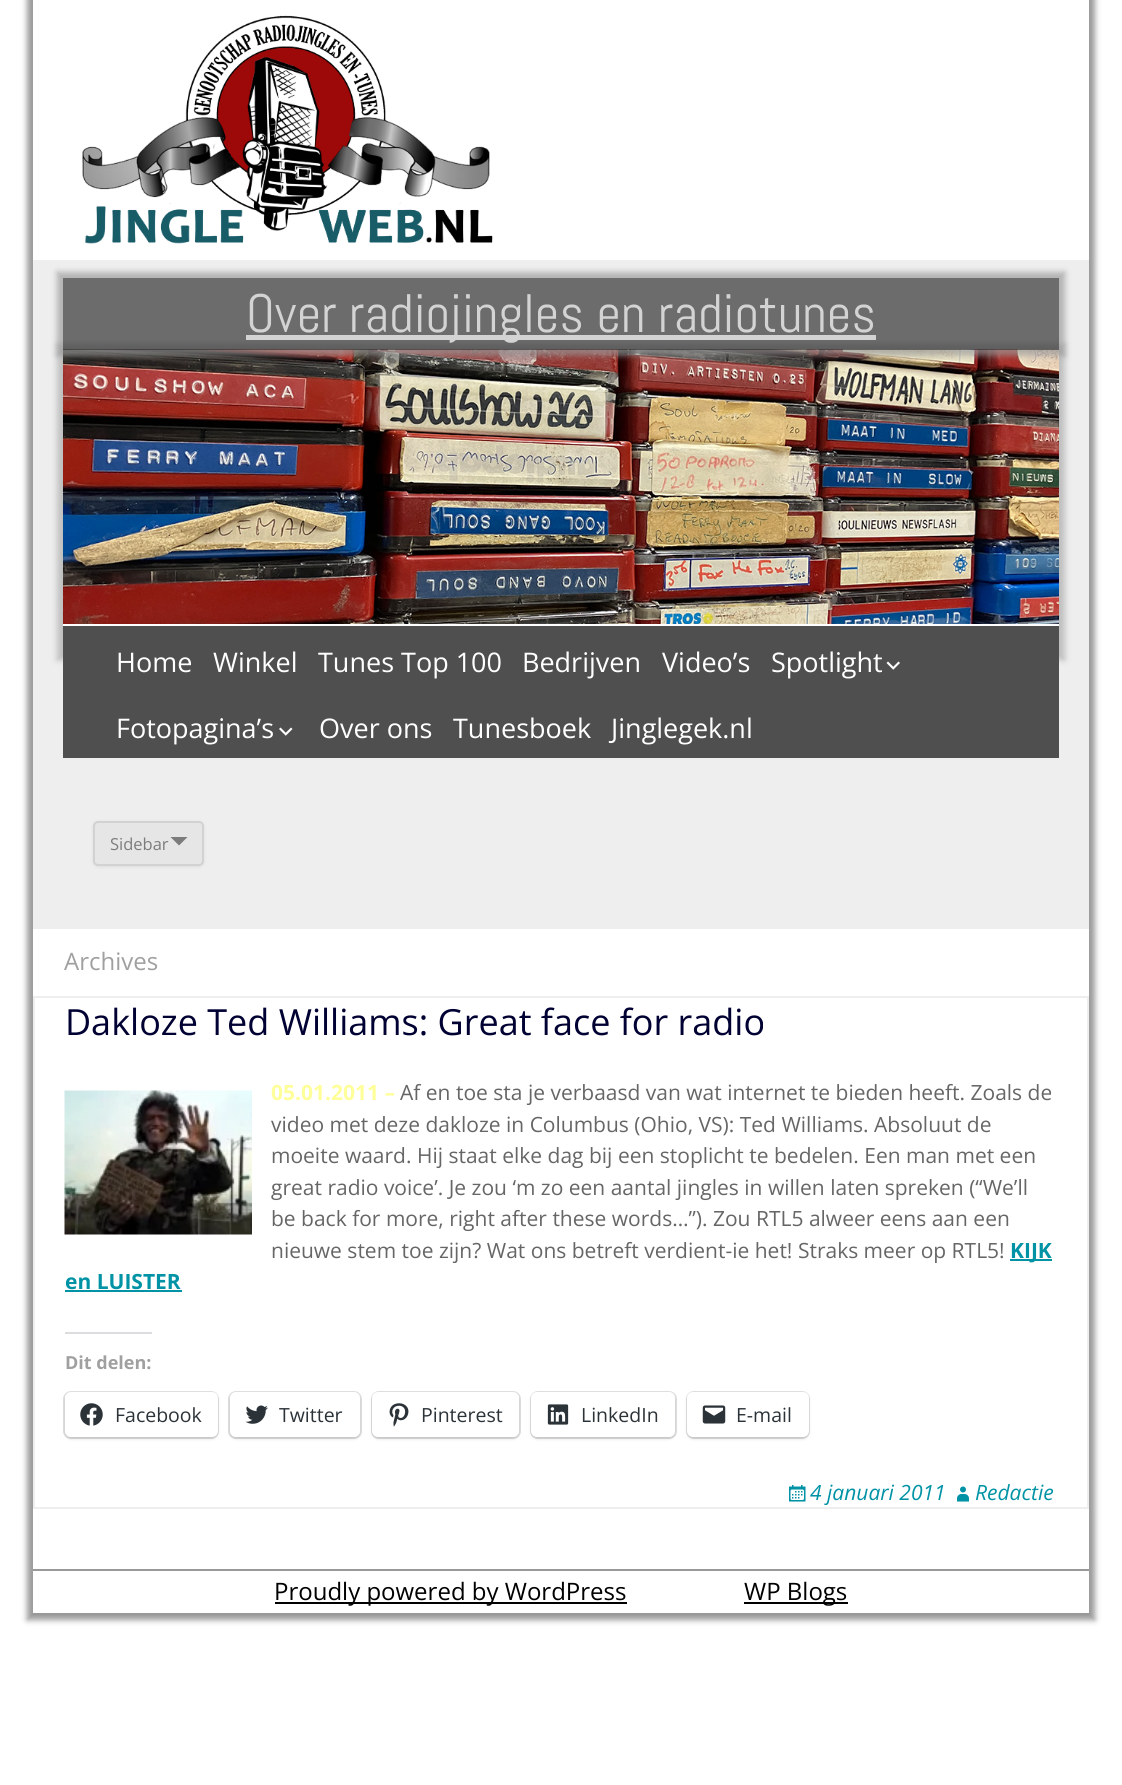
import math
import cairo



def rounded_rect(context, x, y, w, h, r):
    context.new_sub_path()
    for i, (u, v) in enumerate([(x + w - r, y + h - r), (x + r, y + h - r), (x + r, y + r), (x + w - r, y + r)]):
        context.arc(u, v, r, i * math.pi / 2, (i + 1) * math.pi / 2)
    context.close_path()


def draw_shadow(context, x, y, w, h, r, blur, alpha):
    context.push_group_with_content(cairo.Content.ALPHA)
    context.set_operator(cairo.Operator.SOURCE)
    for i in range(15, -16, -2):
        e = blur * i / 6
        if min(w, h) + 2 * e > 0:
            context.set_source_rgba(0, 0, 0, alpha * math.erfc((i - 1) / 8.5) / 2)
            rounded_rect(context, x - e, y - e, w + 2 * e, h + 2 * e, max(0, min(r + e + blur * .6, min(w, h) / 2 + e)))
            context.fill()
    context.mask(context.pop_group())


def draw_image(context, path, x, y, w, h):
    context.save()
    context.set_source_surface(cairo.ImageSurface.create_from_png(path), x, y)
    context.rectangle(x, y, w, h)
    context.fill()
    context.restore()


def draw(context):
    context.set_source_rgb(1, 1, 1)
    context.paint()
    context.set_source_rgb(153 / 255, 153 / 255, 153 / 255)
    draw_shadow(context, 27, -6, 1068, 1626, 0, 3, 1)
    context.set_source_rgb(238 / 255, 238 / 255, 238 / 255)
    context.rectangle(33, 260, 1056, 669)
    context.fill()
    context.set_source_rgb(1, 1, 1)
    context.rectangle(33, 0, 1056, 260)
    context.fill()
    draw_image(context, "images/1.png", 82, 15, 411, 229)
    context.set_source_rgb(191 / 255, 191 / 255, 191 / 255)
    draw_shadow(context, 57, 344, 1008, 316, 0, 3, 1)
    draw_image(context, "images/2.png", 63, 349, 996, 275)
    context.save()
    context.set_fill_rule(cairo.FillRule.EVEN_ODD)
    context.new_path()
    context.move_to(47, 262)
    context.line_to(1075, 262)
    context.line_to(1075, 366)
    context.line_to(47, 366)
    context.close_path()
    context.move_to(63, 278)
    context.line_to(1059, 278)
    context.line_to(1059, 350)
    context.line_to(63, 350)
    context.close_path()
    context.clip()
    context.set_source_rgb(153 / 255, 153 / 255, 153 / 255)
    draw_shadow(context, 57, 272, 1008, 84, 0, 3, 0.7)
    context.restore()
    context.set_source_rgba(53 / 255, 53 / 255, 53 / 255, 0.7)
    context.rectangle(63, 278, 996, 72)
    context.fill()
    context.set_source_rgb(211 / 255, 211 / 255, 211 / 255)
    context.rectangle(246, 335, 630, 5)
    context.fill()
    context.set_source_rgb(79 / 255, 79 / 255, 79 / 255)
    context.rectangle(63, 626, 996, 132)
    context.fill()
    context.set_source_rgb(1, 1, 1)
    context.rectangle(63, 624, 996, 2)
    context.fill()
    draw_image(context, "images/3.png", 886, 661, 14, 9)
    draw_image(context, "images/4.png", 279, 727, 14, 9)
    context.set_source_rgb(64 / 255, 64 / 255, 64 / 255)
    draw_shadow(context, 93, 822, 111, 45, 5, 1.5, 0.1)
    context.set_source_rgb(230 / 255, 230 / 255, 230 / 255)
    rounded_rect(context, 94, 822, 109, 43, 4)
    context.fill_preserve()
    context.set_source_rgb(210 / 255, 210 / 255, 210 / 255)
    context.stroke()
    context.set_source_rgb(124 / 255, 124 / 255, 124 / 255)
    context.new_path()
    context.move_to(170.5, 837)
    context.line_to(187.5, 837)
    context.line_to(179, 845.5)
    context.close_path()
    context.fill()
    context.set_source_rgb(1, 1, 1)
    context.rectangle(33, 929, 1056, 640)
    context.fill()
    context.rectangle(34, 997, 1054, 511)
    context.set_source_rgb(238 / 255, 238 / 255, 238 / 255)
    context.stroke()
    draw_image(context, "images/5.png", 64, 1090, 188, 145)
    context.set_source_rgb(0, 146 / 255, 165 / 255)
    context.rectangle(1010, 1259, 42, 2)
    context.fill()
    context.rectangle(65, 1290, 117, 2)
    context.fill()
    context.set_source_rgb(220 / 255, 220 / 255, 222 / 255)
    context.rectangle(65, 1332, 87, 2)
    context.fill()
    rounded_rect(context, 64, 1392, 154, 46, 7)
    context.set_source_rgb(224 / 255, 224 / 255, 224 / 255)
    context.stroke()
    context.set_source_rgb(0, 0, 0)
    draw_shadow(context, 65, 1394, 153, 45, 6, 1.5, 0.12)
    context.set_source_rgb(1, 1, 1)
    rounded_rect(context, 65, 1392, 153, 45, 6)
    context.fill()
    draw_image(context, "images/6.png", 80, 1403, 23, 23)
    rounded_rect(context, 229, 1392, 132, 46, 7)
    context.set_source_rgb(224 / 255, 224 / 255, 224 / 255)
    context.stroke()
    context.set_source_rgb(0, 0, 0)
    draw_shadow(context, 230, 1394, 130, 45, 6, 1.5, 0.12)
    context.set_source_rgb(1, 1, 1)
    rounded_rect(context, 230, 1392, 130, 45, 6)
    context.fill()
    draw_image(context, "images/7.png", 245, 1405, 23, 19)
    rounded_rect(context, 372, 1392, 148, 46, 7)
    context.set_source_rgb(224 / 255, 224 / 255, 224 / 255)
    context.stroke()
    context.set_source_rgb(0, 0, 0)
    draw_shadow(context, 372, 1394, 147, 45, 6, 1.5, 0.12)
    context.set_source_rgb(1, 1, 1)
    rounded_rect(context, 372, 1392, 147, 45, 6)
    context.fill()
    draw_image(context, "images/8.png", 389, 1403, 20, 24)
    rounded_rect(context, 531, 1392, 145, 46, 7)
    context.set_source_rgb(224 / 255, 224 / 255, 224 / 255)
    context.stroke()
    context.set_source_rgb(0, 0, 0)
    draw_shadow(context, 531, 1394, 144, 45, 6, 1.5, 0.12)
    context.set_source_rgb(1, 1, 1)
    rounded_rect(context, 531, 1392, 144, 45, 6)
    context.fill()
    draw_image(context, "images/9.png", 547, 1404, 22, 21)
    rounded_rect(context, 687, 1392, 122, 46, 7)
    context.set_source_rgb(224 / 255, 224 / 255, 224 / 255)
    context.stroke()
    context.set_source_rgb(0, 0, 0)
    draw_shadow(context, 687, 1394, 122, 45, 6, 1.5, 0.12)
    context.set_source_rgb(1, 1, 1)
    rounded_rect(context, 687, 1392, 122, 45, 6)
    context.fill()
    draw_image(context, "images/10.png", 702, 1405, 24, 19)
    draw_image(context, "images/11.png", 789, 1485, 17, 17)
    draw_image(context, "images/12.png", 957, 1486, 12, 16)
    context.rectangle(33, 1571, 1056, 42)
    context.fill()
    context.set_source_rgb(153 / 255, 153 / 255, 153 / 255)
    context.rectangle(33, 1613, 1056, 2)
    context.fill()
    context.set_source_rgb(0, 0, 0)
    context.rectangle(275, 1602, 352, 2)
    context.fill()
    context.rectangle(744, 1602, 104, 2)
    context.fill()
    context.select_font_face("Abel")
    context.set_font_size(54)
    context.set_source_rgb(211 / 255, 211 / 255, 211 / 255)
    context.move_to(246, 332)
    context.show_text("Over radiojingles en radiotunes")
    context.select_font_face("Open Sans")
    context.set_font_size(27)
    context.set_source_rgb(1, 1, 1)
    context.move_to(116, 672)
    context.show_text("Home")
    context.move_to(213, 672)
    context.show_text("Winkel")
    context.move_to(318, 672)
    context.show_text("Tunes Top 100")
    context.move_to(522, 672)
    context.show_text("Bedrijven")
    context.move_to(662, 672)
    context.show_text("Video’s")
    context.move_to(771, 672)
    context.show_text("Spotlight")
    context.move_to(116, 738)
    context.show_text("Fotopagina’s")
    context.move_to(319, 738)
    context.show_text("Over ons")
    context.move_to(453, 738)
    context.show_text("Tunesboek")
    context.move_to(611, 738)
    context.show_text("Jinglegek.nl")
    context.set_font_size(16.5)
    context.set_source_rgb(124 / 255, 124 / 255, 124 / 255)
    context.move_to(110, 850)
    context.show_text("Sidebar")
    context.set_font_size(24)
    context.set_source_rgb(160 / 255, 160 / 255, 160 / 255)
    context.move_to(64, 970)
    context.show_text("Archives")
    context.set_font_size(36)
    context.set_source_rgb(0, 0, 51 / 255)
    context.move_to(65, 1035)
    context.show_text("Dakloze Ted Williams: Great face for radio")
    context.select_font_face("Open Sans", cairo.FontSlant.NORMAL, cairo.FontWeight.BOLD)
    context.set_font_size(21)
    context.set_source_rgb(1, 1, 153 / 255)
    context.move_to(271, 1100)
    context.show_text("05.01.2011 –")
    context.select_font_face("Open Sans")
    context.set_source_rgb(102 / 255, 102 / 255, 102 / 255)
    context.move_to(400, 1100)
    context.show_text("Af en toe sta je verbaasd van wat internet te bieden heeft. Zoals de")
    context.move_to(271, 1132)
    context.show_text("video met deze dakloze in Columbus (Ohio, VS): Ted Williams. Absoluut de")
    context.move_to(271, 1163)
    context.show_text("moeite waard. Hij staat elke dag bij een stoplicht te bedelen. Een man met een")
    context.move_to(271, 1195)
    context.show_text("great radio voice’. Je zou ‘m zo een aantal jingles in willen laten spreken (“We’ll")
    context.move_to(271, 1226)
    context.show_text("be back for more, right after these words…”). Zou RTL5 alweer eens aan een")
    context.move_to(271, 1258)
    context.show_text("nieuwe stem toe zijn? Wat ons betreft verdient-ie het! Straks meer op RTL5!")
    context.select_font_face("Open Sans", cairo.FontSlant.NORMAL, cairo.FontWeight.BOLD)
    context.set_source_rgb(0, 146 / 255, 165 / 255)
    context.move_to(1010, 1258)
    context.show_text("KIJK")
    context.move_to(65, 1289)
    context.show_text("en LUISTER")
    context.set_font_size(18)
    context.set_source_rgb(160 / 255, 160 / 255, 160 / 255)
    context.move_to(65, 1369)
    context.show_text("Dit delen:")
    context.select_font_face("Open Sans")
    context.set_font_size(19.5)
    context.set_source_rgb(44 / 255, 51 / 255, 56 / 255)
    context.move_to(115, 1422)
    context.show_text("Facebook")
    context.move_to(279, 1422)
    context.show_text("Twitter")
    context.move_to(421, 1422)
    context.show_text("Pinterest")
    context.move_to(581, 1422)
    context.show_text("LinkedIn")
    context.move_to(736, 1422)
    context.show_text("E-mail")
    context.select_font_face("Open Sans", cairo.FontSlant.ITALIC)
    context.set_font_size(21)
    context.set_source_rgb(0, 146 / 255, 165 / 255)
    context.move_to(810, 1500)
    context.show_text("4 januari 2011")
    context.move_to(975, 1500)
    context.show_text("Redactie")
    context.select_font_face("Open Sans")
    context.set_font_size(24)
    context.set_source_rgb(0, 0, 0)
    context.move_to(274, 1600)
    context.show_text("Proudly powered by WordPress")
    context.move_to(744, 1600)
    context.show_text("WP Blogs")


surface = cairo.ImageSurface(cairo.Format.RGB24, 1122, 1785)
context = cairo.Context(surface)
options = cairo.FontOptions()
options.set_hint_metrics(cairo.HintMetrics.OFF)
options.set_hint_style(cairo.HintStyle.NONE)
context.set_font_options(options)
context.set_miter_limit(4)
draw(context)
surface.write_to_png("out.png")
